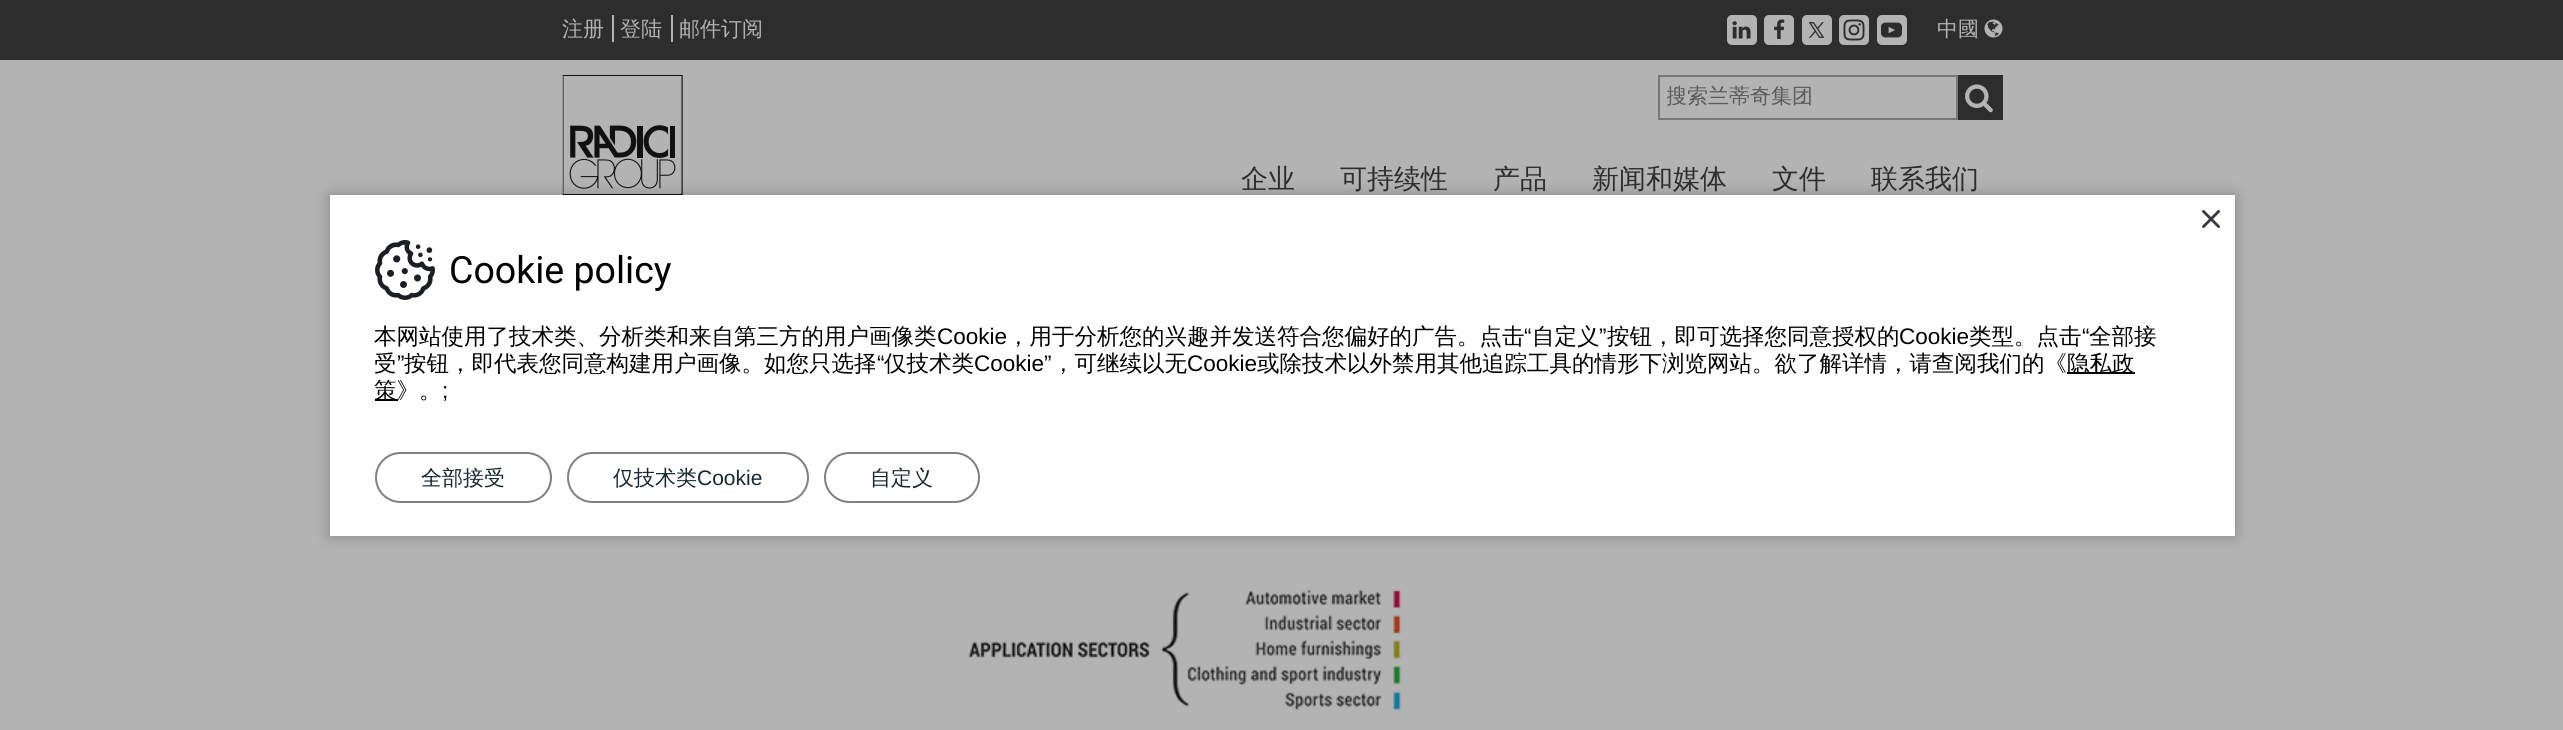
import math
import cairo



def rounded_rect(context, x, y, w, h, r):
    context.new_sub_path()
    for i, (u, v) in enumerate([(x + w - r, y + h - r), (x + r, y + h - r), (x + r, y + r), (x + w - r, y + r)]):
        context.arc(u, v, r, i * math.pi / 2, (i + 1) * math.pi / 2)
    context.close_path()


def draw_shadow(context, x, y, w, h, r, blur, alpha):
    context.push_group_with_content(cairo.Content.ALPHA)
    context.set_operator(cairo.Operator.SOURCE)
    for i in range(15, -16, -2):
        e = blur * i / 6
        if min(w, h) + 2 * e > 0:
            context.set_source_rgba(0, 0, 0, alpha * math.erfc((i - 1) / 8.5) / 2)
            rounded_rect(context, x - e, y - e, w + 2 * e, h + 2 * e, max(0, min(r + e + blur * .6, min(w, h) / 2 + e)))
            context.fill()
    context.mask(context.pop_group())


def draw_image(context, path, x, y, w, h):
    context.save()
    context.set_source_surface(cairo.ImageSurface.create_from_png(path), x, y)
    context.rectangle(x, y, w, h)
    context.fill()
    context.restore()


def draw(context):
    context.set_source_rgb(45 / 255, 45 / 255, 45 / 255)
    context.paint()
    context.set_source_rgb(179 / 255, 179 / 255, 179 / 255)
    context.rectangle(612, 15, 2, 27)
    context.fill()
    context.rectangle(671, 15, 2, 27)
    context.fill()
    rounded_rect(context, 1727, 15, 30, 30, 5)
    context.fill()
    draw_image(context, "images/1.png", 1732, 21, 19, 18)
    rounded_rect(context, 1764, 15, 30, 30, 5)
    context.fill()
    draw_image(context, "images/2.png", 1774, 19, 11, 20)
    rounded_rect(context, 1802, 15, 30, 30, 5)
    context.fill()
    draw_image(context, "images/3.png", 1808, 22, 17, 16)
    rounded_rect(context, 1839, 15, 30, 30, 5)
    context.fill()
    draw_image(context, "images/4.png", 1843, 19, 22, 22)
    rounded_rect(context, 1877, 15, 30, 30, 5)
    context.fill()
    draw_image(context, "images/5.png", 1881, 22, 21, 16)
    draw_image(context, "images/6.png", 1984, 19, 19, 19)
    context.rectangle(0, 60, 2563, 670)
    context.fill()
    draw_image(context, "images/7.png", 562, 75, 121, 120)
    draw_image(context, "images/8.png", 569, 75, 114, 120)
    context.rectangle(1659, 76, 298, 43)
    context.set_source_rgb(119 / 255, 119 / 255, 119 / 255)
    context.stroke()
    context.set_source_rgb(45 / 255, 45 / 255, 45 / 255)
    context.rectangle(1958, 75, 45, 45)
    context.fill()
    draw_image(context, "images/9.png", 1965, 84, 28, 29)
    draw_image(context, "images/12.png", 968, 536, 648, 175)
    context.set_source_rgb(0, 0, 0)
    draw_shadow(context, 330, 195, 1905, 341, 0, 7.5, 0.25)
    context.set_source_rgb(1, 1, 1)
    context.rectangle(330, 195, 1905, 341)
    context.fill()
    draw_image(context, "images/10.png", 2202, 210, 18, 18)
    draw_image(context, "images/11.png", 375, 240, 60, 60)
    context.set_source_rgb(0, 0, 0)
    context.rectangle(2067, 372, 68, 2)
    context.fill()
    context.rectangle(375, 399, 23, 2)
    context.fill()
    rounded_rect(context, 376, 453, 175, 49, 24.5)
    context.set_source_rgb(128 / 255, 128 / 255, 128 / 255)
    context.stroke()
    rounded_rect(context, 568, 453, 240, 49, 24.5)
    context.stroke()
    rounded_rect(context, 825, 453, 154, 49, 24.5)
    context.stroke()
    context.select_font_face("WenQuanYi Zen Hei Medium")
    context.set_font_size(21)
    context.set_source_rgb(179 / 255, 179 / 255, 179 / 255)
    context.move_to(562, 36)
    context.show_text("注册")
    context.move_to(620, 36)
    context.show_text("登陆")
    context.move_to(679, 36)
    context.show_text("邮件订阅")
    context.move_to(1937, 36)
    context.show_text("中國")
    context.save()
    context.rectangle(1667, 84, 282, 27)
    context.clip()
    context.set_source_rgb(90 / 255, 90 / 255, 90 / 255)
    context.move_to(1666, 103)
    context.show_text("搜索兰蒂奇集团")
    context.restore()
    context.set_font_size(27)
    context.set_source_rgb(45 / 255, 45 / 255, 45 / 255)
    context.move_to(1241, 188)
    context.show_text("企业")
    context.move_to(1340, 188)
    context.show_text("可持续性")
    context.move_to(1493, 188)
    context.show_text("产品")
    context.move_to(1592, 188)
    context.show_text("新闻和媒体")
    context.move_to(1772, 188)
    context.show_text("文件")
    context.move_to(1871, 188)
    context.show_text("联系我们")
    context.select_font_face("Roboto")
    context.set_font_size(37.5)
    context.set_source_rgb(0, 0, 0)
    context.move_to(449, 283)
    context.show_text("Cookie policy")
    context.select_font_face("WenQuanYi Zen Hei Medium")
    context.set_font_size(22.5)
    context.move_to(374, 344)
    context.show_text("本网站使用了技术类、分析类和来自第三方的用户画像类")
    context.select_font_face("Liberation Sans")
    context.move_to(937, 344)
    context.show_text("Cookie")
    context.select_font_face("WenQuanYi Zen Hei Medium")
    context.move_to(1007, 344)
    context.show_text("，用于分析您的兴趣并发送符合您偏好的广告。点击")
    context.select_font_face("Liberation Sans")
    context.move_to(1524, 344)
    context.show_text("“")
    context.select_font_face("WenQuanYi Zen Hei Medium")
    context.move_to(1532, 344)
    context.show_text("自定义")
    context.select_font_face("Liberation Sans")
    context.move_to(1599, 344)
    context.show_text("”")
    context.select_font_face("WenQuanYi Zen Hei Medium")
    context.move_to(1607, 344)
    context.show_text("按钮，即可选择您同意授权的")
    context.select_font_face("Liberation Sans")
    context.move_to(1899, 344)
    context.show_text("Cookie")
    context.select_font_face("WenQuanYi Zen Hei Medium")
    context.move_to(1969, 344)
    context.show_text("类型。点击")
    context.select_font_face("Liberation Sans")
    context.move_to(2082, 344)
    context.show_text("“")
    context.select_font_face("WenQuanYi Zen Hei Medium")
    context.move_to(2089, 344)
    context.show_text("全部接")
    context.move_to(374, 371)
    context.show_text("受")
    context.select_font_face("Liberation Sans")
    context.move_to(397, 371)
    context.show_text("”")
    context.select_font_face("WenQuanYi Zen Hei Medium")
    context.move_to(404, 371)
    context.show_text("按钮，即代表您同意构建用户画像。如您只选择")
    context.select_font_face("Liberation Sans")
    context.move_to(877, 371)
    context.show_text("“")
    context.select_font_face("WenQuanYi Zen Hei Medium")
    context.move_to(884, 371)
    context.show_text("仅技术类")
    context.select_font_face("Liberation Sans")
    context.move_to(974, 371)
    context.show_text("Cookie”")
    context.select_font_face("WenQuanYi Zen Hei Medium")
    context.move_to(1052, 371)
    context.show_text("，可继续以无")
    context.select_font_face("Liberation Sans")
    context.move_to(1187, 371)
    context.show_text("Cookie")
    context.select_font_face("WenQuanYi Zen Hei Medium")
    context.move_to(1257, 371)
    context.show_text("或除技术以外禁用其他追踪工具的情形下浏览网站。欲了解详情，请查阅我们的《")
    context.move_to(2067, 371)
    context.show_text("隐私政")
    context.move_to(374, 398)
    context.show_text("策》。")
    context.select_font_face("Liberation Sans")
    context.move_to(442, 398)
    context.show_text(";")
    context.select_font_face("WenQuanYi Zen Hei Medium")
    context.set_font_size(21)
    context.set_source_rgb(23 / 255, 39 / 255, 47 / 255)
    context.move_to(421, 485)
    context.show_text("全部接受")
    context.move_to(613, 485)
    context.show_text("仅技术类")
    context.select_font_face("Liberation Sans")
    context.move_to(697, 485)
    context.show_text("Cookie")
    context.select_font_face("WenQuanYi Zen Hei Medium")
    context.move_to(870, 485)
    context.show_text("自定义")


surface = cairo.ImageSurface(cairo.Format.RGB24, 2563, 730)
context = cairo.Context(surface)
options = cairo.FontOptions()
options.set_hint_metrics(cairo.HintMetrics.OFF)
options.set_hint_style(cairo.HintStyle.NONE)
context.set_font_options(options)
context.set_miter_limit(4)
draw(context)
surface.write_to_png("out.png")
